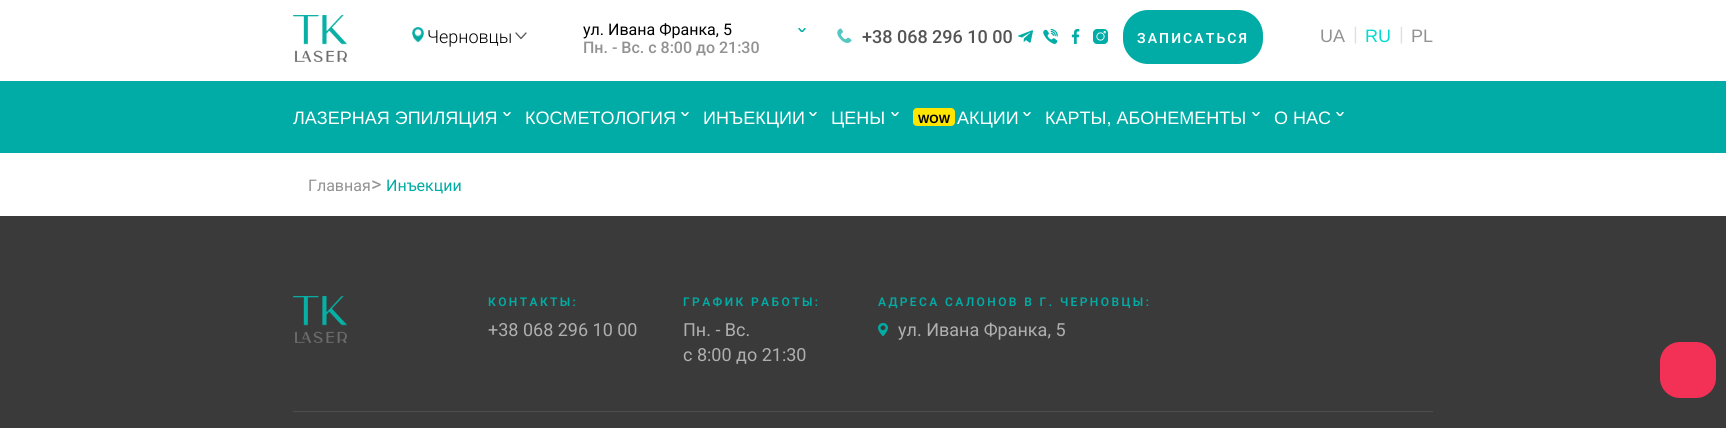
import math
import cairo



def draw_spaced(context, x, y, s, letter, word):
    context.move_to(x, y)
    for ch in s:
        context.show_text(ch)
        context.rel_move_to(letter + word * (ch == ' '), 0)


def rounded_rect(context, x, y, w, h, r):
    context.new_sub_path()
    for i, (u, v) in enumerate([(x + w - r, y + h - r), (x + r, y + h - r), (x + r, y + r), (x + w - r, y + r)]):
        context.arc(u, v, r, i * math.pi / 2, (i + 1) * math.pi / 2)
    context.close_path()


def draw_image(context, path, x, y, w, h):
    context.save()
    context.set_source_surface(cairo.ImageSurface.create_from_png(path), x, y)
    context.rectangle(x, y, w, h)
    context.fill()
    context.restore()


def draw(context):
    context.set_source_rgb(1, 1, 1)
    context.paint()
    draw_image(context, "images/1.png", 293, 15, 54, 47)
    draw_image(context, "images/2.png", 412, 27, 12, 16)
    context.new_path()
    context.move_to(526, 33)
    context.line_to(521, 38.5)
    context.line_to(516, 33)
    context.set_source_rgb(84 / 255, 84 / 255, 84 / 255)
    context.set_line_width(1.3)
    context.set_line_cap(cairo.LineCap.ROUND)
    context.set_line_join(cairo.LineJoin.ROUND)
    context.stroke()
    context.save()
    context.rectangle(798, 28, 8, 4)
    context.clip()
    context.new_path()
    context.move_to(799, 28.5)
    context.line_to(802, 32)
    context.line_to(805, 28.5)
    context.set_source_rgb(0, 172 / 255, 165 / 255)
    context.set_line_width(1.5)
    context.stroke()
    context.restore()
    draw_image(context, "images/3.png", 837, 28, 15, 15)
    draw_image(context, "images/4.png", 1018, 30, 15, 13)
    draw_image(context, "images/5.png", 1043, 29, 15, 15)
    draw_image(context, "images/6.png", 1071, 29, 9, 15)
    draw_image(context, "images/7.png", 1093, 29, 15, 15)
    context.set_source_rgb(0, 172 / 255, 165 / 255)
    rounded_rect(context, 1123, 10, 140, 54, 25)
    context.fill()
    context.rectangle(0, 81, 1726, 72)
    context.fill()
    context.save()
    context.rectangle(503, 112, 8, 4)
    context.clip()
    context.new_path()
    context.move_to(504, 112.5)
    context.line_to(507, 116)
    context.line_to(510, 112.5)
    context.set_source_rgb(1, 1, 1)
    context.set_line_width(1.5)
    context.stroke()
    context.restore()
    context.save()
    context.rectangle(681, 112, 8, 4)
    context.clip()
    context.new_path()
    context.move_to(682, 112.5)
    context.line_to(685, 116)
    context.line_to(688, 112.5)
    context.set_source_rgb(1, 1, 1)
    context.set_line_width(1.5)
    context.stroke()
    context.restore()
    context.save()
    context.rectangle(809, 112, 8, 4)
    context.clip()
    context.new_path()
    context.move_to(810, 112.5)
    context.line_to(813, 116)
    context.line_to(816, 112.5)
    context.set_source_rgb(1, 1, 1)
    context.set_line_width(1.5)
    context.stroke()
    context.restore()
    context.save()
    context.rectangle(891, 112, 8, 4)
    context.clip()
    context.new_path()
    context.move_to(892, 112.5)
    context.line_to(895, 116)
    context.line_to(898, 112.5)
    context.set_source_rgb(1, 1, 1)
    context.set_line_width(1.5)
    context.stroke()
    context.restore()
    context.set_source_rgb(1, 229 / 255, 0)
    rounded_rect(context, 913, 108, 42, 18, 4)
    context.fill()
    context.save()
    context.rectangle(1023, 112, 8, 4)
    context.clip()
    context.new_path()
    context.move_to(1024, 112.5)
    context.line_to(1027, 116)
    context.line_to(1030, 112.5)
    context.set_source_rgb(1, 1, 1)
    context.set_line_width(1.5)
    context.stroke()
    context.restore()
    context.save()
    context.rectangle(1252, 112, 8, 4)
    context.clip()
    context.new_path()
    context.move_to(1253, 112.5)
    context.line_to(1256, 116)
    context.line_to(1259, 112.5)
    context.set_source_rgb(1, 1, 1)
    context.set_line_width(1.5)
    context.stroke()
    context.restore()
    context.save()
    context.rectangle(1336, 112, 8, 4)
    context.clip()
    context.new_path()
    context.move_to(1337, 112.5)
    context.line_to(1340, 116)
    context.line_to(1343, 112.5)
    context.set_source_rgb(1, 1, 1)
    context.set_line_width(1.5)
    context.stroke()
    context.restore()
    context.set_source_rgb(58 / 255, 58 / 255, 58 / 255)
    context.rectangle(0, 216, 1726, 212)
    context.fill()
    draw_image(context, "images/8.png", 293, 296, 54, 47)
    draw_image(context, "images/9.png", 878, 323, 10, 14)
    context.set_source_rgb(78 / 255, 78 / 255, 78 / 255)
    context.rectangle(293, 411, 1140, 1)
    context.fill()
    context.set_source_rgb(243 / 255, 49 / 255, 86 / 255)
    rounded_rect(context, 1660, 342, 56, 56, 20)
    context.fill()
    context.select_font_face("Roboto Light")
    context.set_font_size(18)
    context.set_source_rgb(0, 0, 0)
    context.move_to(427, 43)
    context.show_text("Черновцы")
    context.select_font_face("Roboto")
    context.set_font_size(16)
    context.move_to(583, 35)
    context.show_text("ул. Ивана Франка, 5")
    context.select_font_face("Roboto Medium")
    context.set_source_rgb(146 / 255, 146 / 255, 146 / 255)
    context.move_to(583, 53)
    context.show_text("Пн. - Вс. с 8:00 до 21:30")
    context.set_font_size(18)
    context.set_source_rgb(84 / 255, 84 / 255, 84 / 255)
    context.move_to(862, 43)
    context.show_text("+38 068 296 10 00")
    context.select_font_face("Roboto SemiBold")
    context.set_font_size(14)
    context.set_source_rgb(1, 1, 1)
    draw_spaced(context, 1137, 43, "ЗАПИСАТЬСЯ", 2.1, 0)
    context.select_font_face("Liberation Sans")
    context.set_font_size(18)
    context.set_source_rgb(146 / 255, 146 / 255, 146 / 255)
    context.move_to(1320, 42)
    context.show_text("UA")
    context.select_font_face("Roboto")
    context.set_font_size(20)
    context.set_source_rgb(224 / 255, 224 / 255, 224 / 255)
    context.move_to(1353, 41)
    context.show_text("|")
    context.select_font_face("Liberation Sans")
    context.set_font_size(18)
    context.set_source_rgb(1 / 255, 219 / 255, 210 / 255)
    context.move_to(1365, 42)
    context.show_text("RU")
    context.select_font_face("Roboto")
    context.set_font_size(20)
    context.set_source_rgb(224 / 255, 224 / 255, 224 / 255)
    context.move_to(1399, 41)
    context.show_text("|")
    context.select_font_face("Liberation Sans")
    context.set_font_size(18)
    context.set_source_rgb(146 / 255, 146 / 255, 146 / 255)
    context.move_to(1411, 42)
    context.show_text("PL")
    context.set_source_rgb(1, 1, 1)
    context.move_to(293, 124)
    context.show_text("ЛАЗЕРНАЯ ЭПИЛЯЦИЯ")
    context.move_to(525, 124)
    context.show_text("КОСМЕТОЛОГИЯ")
    context.move_to(703, 124)
    context.show_text("ИНЪЕКЦИИ")
    context.move_to(831, 124)
    context.show_text("ЦЕНЫ")
    context.select_font_face("Liberation Sans", cairo.FontSlant.NORMAL, cairo.FontWeight.BOLD)
    context.set_font_size(12)
    context.set_source_rgb(0, 0, 0)
    context.move_to(918, 123)
    context.show_text("WOW")
    context.select_font_face("Liberation Sans")
    context.set_font_size(18)
    context.set_source_rgb(1, 1, 1)
    context.move_to(957, 124)
    context.show_text("АКЦИИ")
    context.move_to(1045, 124)
    context.show_text("КАРТЫ, АБОНЕМЕНТЫ")
    context.move_to(1274, 124)
    context.show_text("О НАС")
    context.select_font_face("Roboto")
    context.set_font_size(16)
    context.set_source_rgb(146 / 255, 146 / 255, 146 / 255)
    context.move_to(308, 191)
    context.show_text("Главная")
    context.set_font_size(20)
    context.move_to(371, 191)
    context.show_text(">")
    context.set_font_size(16)
    context.set_source_rgb(0, 172 / 255, 165 / 255)
    context.move_to(386, 191)
    context.show_text("Инъекции")
    context.select_font_face("Roboto SemiBold")
    context.set_font_size(12)
    draw_spaced(context, 488, 306, "КОНТАКТЫ:", 2.4, 0)
    context.select_font_face("Roboto")
    context.set_font_size(18)
    context.set_source_rgb(175 / 255, 175 / 255, 175 / 255)
    context.move_to(488, 336)
    context.show_text("+38 068 296 10 00")
    context.select_font_face("Roboto SemiBold")
    context.set_font_size(12)
    context.set_source_rgb(0, 172 / 255, 165 / 255)
    draw_spaced(context, 683, 306, "ГРАФИК РАБОТЫ:", 2.4, 0)
    context.select_font_face("Roboto")
    context.set_font_size(18)
    context.set_source_rgb(175 / 255, 175 / 255, 175 / 255)
    context.move_to(683, 336)
    context.show_text("Пн. - Вс.")
    context.move_to(683, 361)
    context.show_text("с 8:00 до 21:30")
    context.select_font_face("Roboto SemiBold")
    context.set_font_size(12)
    context.set_source_rgb(0, 172 / 255, 165 / 255)
    draw_spaced(context, 878, 306, "АДРЕСА САЛОНОВ В Г. ЧЕРНОВЦЫ:", 2.4, 0)
    context.select_font_face("Roboto")
    context.set_font_size(18)
    context.set_source_rgb(175 / 255, 175 / 255, 175 / 255)
    context.move_to(898, 336)
    context.show_text("ул. Ивана Франка, 5")


surface = cairo.ImageSurface(cairo.Format.RGB24, 1726, 428)
context = cairo.Context(surface)
options = cairo.FontOptions()
options.set_hint_metrics(cairo.HintMetrics.OFF)
options.set_hint_style(cairo.HintStyle.NONE)
context.set_font_options(options)
context.set_miter_limit(4)
draw(context)
surface.write_to_png("out.png")
